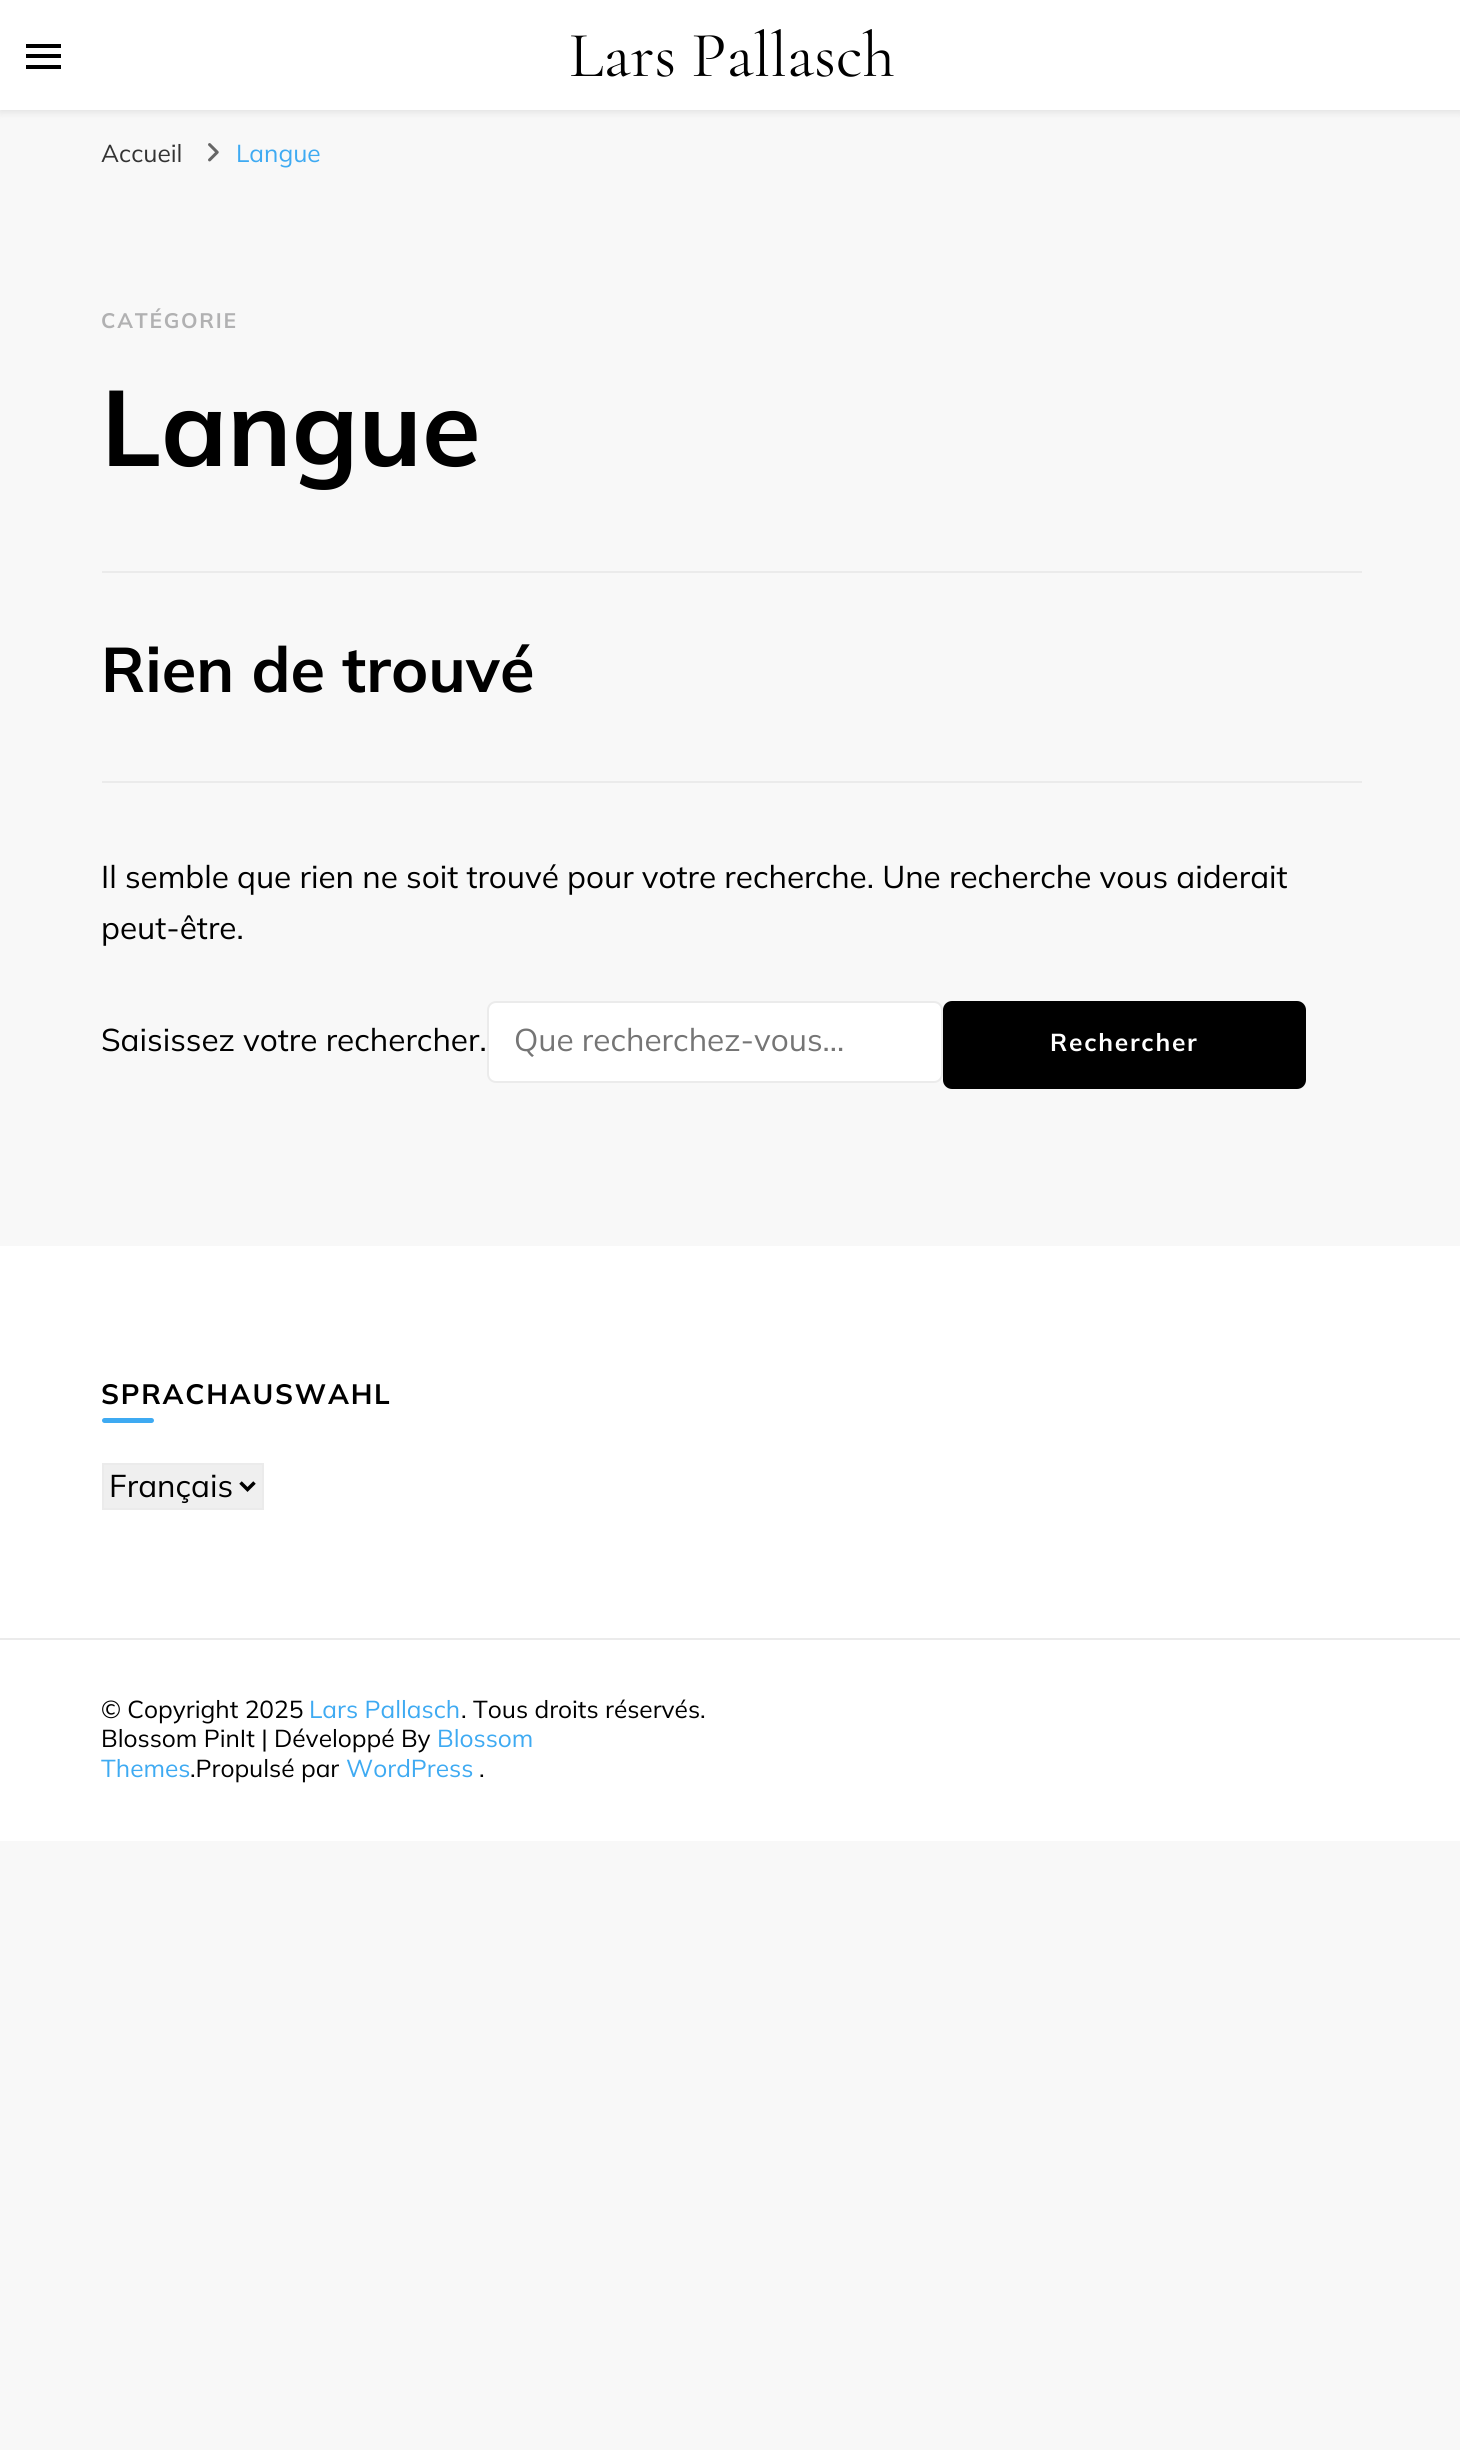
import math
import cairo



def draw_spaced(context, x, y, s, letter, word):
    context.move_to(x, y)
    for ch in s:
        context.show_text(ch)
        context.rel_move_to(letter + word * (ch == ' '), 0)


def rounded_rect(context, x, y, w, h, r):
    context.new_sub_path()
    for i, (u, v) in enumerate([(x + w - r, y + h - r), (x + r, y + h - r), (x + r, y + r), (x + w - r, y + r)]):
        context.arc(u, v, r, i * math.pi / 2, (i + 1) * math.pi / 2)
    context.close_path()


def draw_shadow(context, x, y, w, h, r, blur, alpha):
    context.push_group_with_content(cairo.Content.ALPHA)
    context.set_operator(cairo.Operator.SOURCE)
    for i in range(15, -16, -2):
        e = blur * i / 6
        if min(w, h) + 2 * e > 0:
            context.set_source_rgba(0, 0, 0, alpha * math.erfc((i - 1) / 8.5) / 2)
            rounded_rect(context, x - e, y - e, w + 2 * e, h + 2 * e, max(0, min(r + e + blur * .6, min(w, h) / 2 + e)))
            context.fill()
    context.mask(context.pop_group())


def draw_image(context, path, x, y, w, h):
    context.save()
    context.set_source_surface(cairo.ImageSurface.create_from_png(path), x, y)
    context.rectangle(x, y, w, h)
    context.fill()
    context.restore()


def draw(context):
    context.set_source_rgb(248 / 255, 248 / 255, 248 / 255)
    context.paint()
    context.set_source_rgb(0, 0, 0)
    draw_shadow(context, 0, 2, 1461, 110, 0, 4.5, 0.1)
    context.set_source_rgb(1, 1, 1)
    context.rectangle(0, 0, 1460, 110)
    context.fill()
    context.set_source_rgb(0, 0, 0)
    context.rectangle(26, 44, 35, 4)
    context.fill()
    context.rectangle(26, 54, 35, 4)
    context.fill()
    context.rectangle(26, 65, 35, 4)
    context.fill()
    draw_image(context, "images/1.png", 208, 143, 11, 19)
    context.set_source_rgb(235 / 255, 235 / 255, 235 / 255)
    context.rectangle(102, 571, 1260, 2)
    context.fill()
    context.rectangle(102, 781, 1260, 2)
    context.fill()
    context.set_source_rgb(1, 1, 1)
    rounded_rect(context, 488, 1002, 454, 80, 8)
    context.fill_preserve()
    context.set_source_rgb(235 / 255, 235 / 255, 235 / 255)
    context.stroke()
    context.set_source_rgb(0, 0, 0)
    rounded_rect(context, 944, 1002, 361, 86, 8)
    context.fill_preserve()
    context.stroke()
    context.set_source_rgb(1, 1, 1)
    context.rectangle(0, 1246, 1460, 595)
    context.fill()
    context.set_source_rgb(235 / 255, 235 / 255, 235 / 255)
    context.rectangle(0, 1638, 1460, 2)
    context.fill()
    context.set_source_rgb(62 / 255, 170 / 255, 242 / 255)
    rounded_rect(context, 102, 1418, 52, 5, 2.5)
    context.fill()
    context.set_source_rgb(239 / 255, 239 / 255, 239 / 255)
    context.rectangle(103, 1464, 160, 45)
    context.fill_preserve()
    context.set_source_rgb(235 / 255, 235 / 255, 235 / 255)
    context.stroke()
    context.new_path()
    context.move_to(240.5, 1482.5)
    context.line_to(247.5, 1489.5)
    context.line_to(254.5, 1482.5)
    context.set_source_rgb(0, 0, 0)
    context.set_line_width(3.5)
    context.stroke()
    context.select_font_face("Cormorant Garamond")
    context.set_font_size(64.75)
    context.move_to(569, 76)
    context.show_text("Lars Pallasch")
    context.select_font_face("Mulish")
    context.set_font_size(24.5)
    context.set_source_rgb(51 / 255, 51 / 255, 51 / 255)
    context.move_to(101, 162)
    context.show_text("Accueil")
    context.set_source_rgb(62 / 255, 170 / 255, 242 / 255)
    context.move_to(236, 162)
    context.show_text("Langue")
    context.select_font_face("Mulish", cairo.FontSlant.NORMAL, cairo.FontWeight.BOLD)
    context.set_font_size(21)
    context.set_source_rgb(177 / 255, 177 / 255, 178 / 255)
    draw_spaced(context, 101, 328, "CATÉGORIE", 1.75, 0)
    context.set_font_size(107)
    context.set_source_rgb(0, 0, 0)
    context.move_to(101, 466)
    context.show_text("Langue")
    context.set_font_size(63)
    context.move_to(101, 692)
    context.show_text("Rien de trouvé")
    context.select_font_face("Mulish")
    context.set_font_size(31.5)
    context.move_to(101, 888)
    context.show_text("Il semble que rien ne soit trouvé pour votre recherche. Une recherche vous aiderait")
    context.move_to(101, 939)
    context.show_text("peut-être.")
    context.move_to(101, 1051)
    context.show_text("Saisissez votre rechercher.")
    context.set_source_rgb(117 / 255, 117 / 255, 117 / 255)
    context.move_to(514, 1051)
    context.show_text("Que recherchez-vous...")
    context.select_font_face("Mulish", cairo.FontSlant.NORMAL, cairo.FontWeight.BOLD)
    context.set_font_size(24.5)
    context.set_source_rgb(1, 1, 1)
    draw_spaced(context, 1050, 1051, "Rechercher", 1.75, 0)
    context.set_font_size(28)
    context.set_source_rgb(0, 0, 0)
    draw_spaced(context, 101, 1404, "SPRACHAUSWAHL", 1.75, 0)
    context.select_font_face("Mulish")
    context.set_font_size(31.5)
    context.move_to(109, 1497)
    context.show_text("Français")
    context.set_font_size(24.5)
    context.move_to(101, 1718)
    context.show_text("© Copyright 2025")
    context.set_source_rgb(62 / 255, 170 / 255, 242 / 255)
    context.move_to(309, 1718)
    context.show_text("Lars Pallasch")
    context.set_source_rgb(0, 0, 0)
    context.move_to(461, 1718)
    context.show_text(". Tous droits réservés.")
    context.move_to(101, 1747)
    context.show_text("Blossom PinIt | Développé By")
    context.set_source_rgb(62 / 255, 170 / 255, 242 / 255)
    context.move_to(437, 1747)
    context.show_text("Blossom")
    context.move_to(101, 1777)
    context.show_text("Themes")
    context.set_source_rgb(0, 0, 0)
    context.move_to(190, 1777)
    context.show_text(".Propulsé par")
    context.set_source_rgb(62 / 255, 170 / 255, 242 / 255)
    context.move_to(346, 1777)
    context.show_text("WordPress")
    context.set_source_rgb(0, 0, 0)
    context.move_to(479, 1777)
    context.show_text(".")


surface = cairo.ImageSurface(cairo.Format.RGB24, 1460, 2450)
context = cairo.Context(surface)
options = cairo.FontOptions()
options.set_hint_metrics(cairo.HintMetrics.OFF)
options.set_hint_style(cairo.HintStyle.NONE)
context.set_font_options(options)
context.set_miter_limit(4)
draw(context)
surface.write_to_png("out.png")
